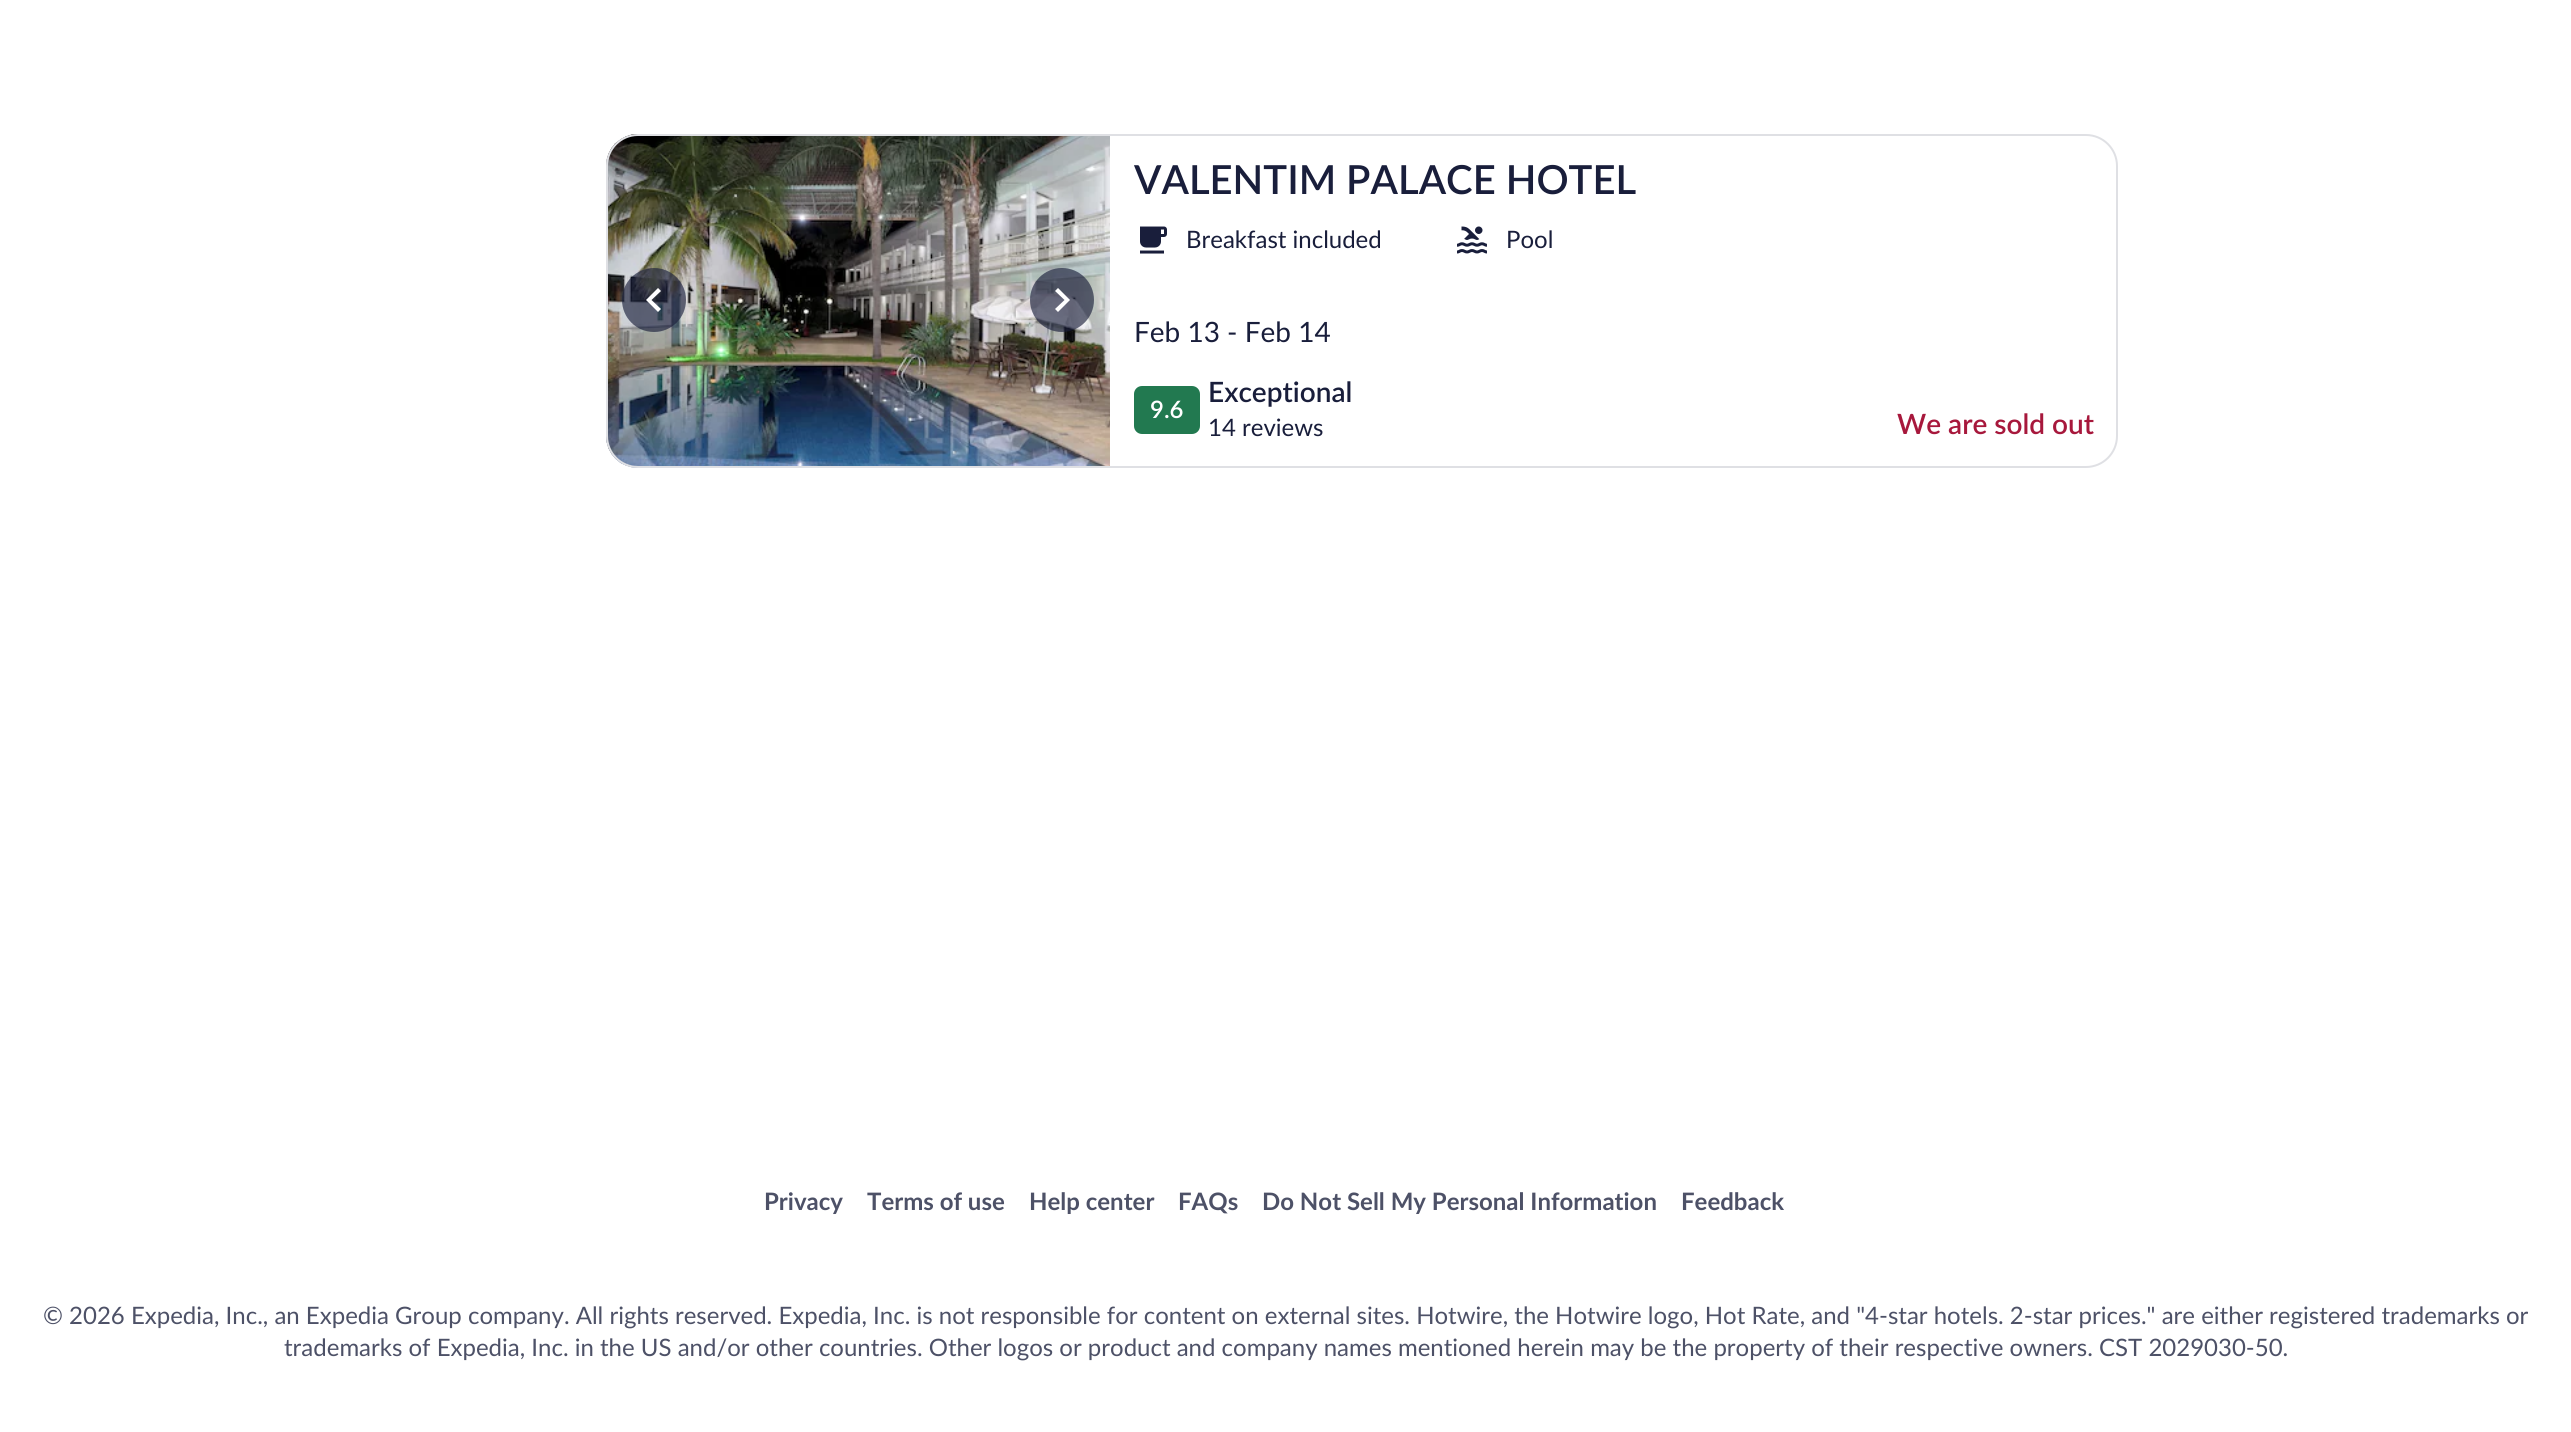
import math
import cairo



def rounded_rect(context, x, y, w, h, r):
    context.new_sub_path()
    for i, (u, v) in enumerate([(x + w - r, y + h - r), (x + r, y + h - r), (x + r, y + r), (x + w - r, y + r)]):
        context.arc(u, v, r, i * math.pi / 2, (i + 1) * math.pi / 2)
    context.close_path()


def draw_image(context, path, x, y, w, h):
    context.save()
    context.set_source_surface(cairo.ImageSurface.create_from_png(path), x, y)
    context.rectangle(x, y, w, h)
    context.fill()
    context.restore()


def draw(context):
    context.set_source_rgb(1, 1, 1)
    context.paint()
    draw_image(context, "images/1.png", 606, 134, 32, 334)
    draw_image(context, "images/2.png", 606, 134, 504, 334)
    context.set_source_rgba(25 / 255, 30 / 255, 59 / 255, 0.64)
    context.arc(654, 300, 32, 0, 2 * math.pi)
    context.fill()
    context.set_source_rgb(1, 1, 1)
    context.new_path()
    context.move_to(661, 291)
    context.line_to(658, 288)
    context.line_to(646, 300)
    context.line_to(658, 312)
    context.line_to(661, 309)
    context.line_to(651.5, 300)
    context.close_path()
    context.fill()
    context.set_source_rgba(25 / 255, 30 / 255, 59 / 255, 0.64)
    context.arc(1062, 300, 32, 0, 2 * math.pi)
    context.fill()
    context.set_source_rgb(1, 1, 1)
    context.new_path()
    context.move_to(1058, 288)
    context.line_to(1055, 291)
    context.line_to(1064.5, 300)
    context.line_to(1055, 309)
    context.line_to(1058, 312)
    context.line_to(1070, 300)
    context.close_path()
    context.fill()
    draw_image(context, "images/3.png", 1140, 226, 27, 28)
    draw_image(context, "images/4.png", 1457, 226, 30, 28)
    context.set_source_rgb(34 / 255, 121 / 255, 80 / 255)
    rounded_rect(context, 1134, 386, 66, 48, 8)
    context.fill()
    rounded_rect(context, 607, 135, 1510, 332, 31)
    context.set_source_rgb(223 / 255, 224 / 255, 228 / 255)
    context.stroke()
    context.select_font_face("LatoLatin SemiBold")
    context.set_font_size(40)
    context.set_source_rgb(25 / 255, 30 / 255, 59 / 255)
    context.move_to(1134, 194)
    context.show_text("VALENTIM PALACE HOTEL")
    context.select_font_face("LatoLatin")
    context.set_font_size(24)
    context.move_to(1186, 248)
    context.show_text("Breakfast included")
    context.move_to(1506, 248)
    context.show_text("Pool")
    context.set_font_size(28)
    context.move_to(1134, 342)
    context.show_text("Feb 13 - Feb 14")
    context.select_font_face("LatoLatin SemiBold")
    context.set_font_size(24)
    context.set_source_rgb(1, 1, 1)
    context.move_to(1150, 418)
    context.show_text("9.6")
    context.set_font_size(28)
    context.set_source_rgb(25 / 255, 30 / 255, 59 / 255)
    context.move_to(1208, 402)
    context.show_text("Exceptional")
    context.select_font_face("LatoLatin")
    context.set_font_size(24)
    context.move_to(1208, 436)
    context.show_text("14 reviews")
    context.select_font_face("LatoLatin SemiBold")
    context.set_font_size(28)
    context.set_source_rgb(167 / 255, 24 / 255, 60 / 255)
    context.move_to(1897, 434)
    context.show_text("We are sold out")
    context.select_font_face("LatoLatin", cairo.FontSlant.NORMAL, cairo.FontWeight.BOLD)
    context.set_font_size(24)
    context.set_source_rgb(77 / 255, 81 / 255, 103 / 255)
    context.move_to(764, 1210)
    context.show_text("Privacy")
    context.move_to(867, 1210)
    context.show_text("Terms of use")
    context.move_to(1029, 1210)
    context.show_text("Help center")
    context.move_to(1178, 1210)
    context.show_text("FAQs")
    context.move_to(1262, 1210)
    context.show_text("Do Not Sell My Personal Information")
    context.move_to(1681, 1210)
    context.show_text("Feedback")
    context.select_font_face("LatoLatin")
    context.move_to(43, 1324)
    context.show_text("© 2026 Expedia, Inc., an Expedia Group company. All rights reserved. Expedia, Inc. is not responsible for content on external sites. Hotwire, the Hotwire logo, Hot Rate, and \"4-star hotels. 2-star prices.\" are either registered trademarks or")
    context.move_to(284, 1356)
    context.show_text("trademarks of Expedia, Inc. in the US and/or other countries. Other logos or product and company names mentioned herein may be the property of their respective owners. CST 2029030-50.")


surface = cairo.ImageSurface(cairo.Format.RGB24, 2571, 1432)
context = cairo.Context(surface)
options = cairo.FontOptions()
options.set_hint_metrics(cairo.HintMetrics.OFF)
options.set_hint_style(cairo.HintStyle.NONE)
context.set_font_options(options)
context.set_miter_limit(4)
draw(context)
surface.write_to_png("out.png")
